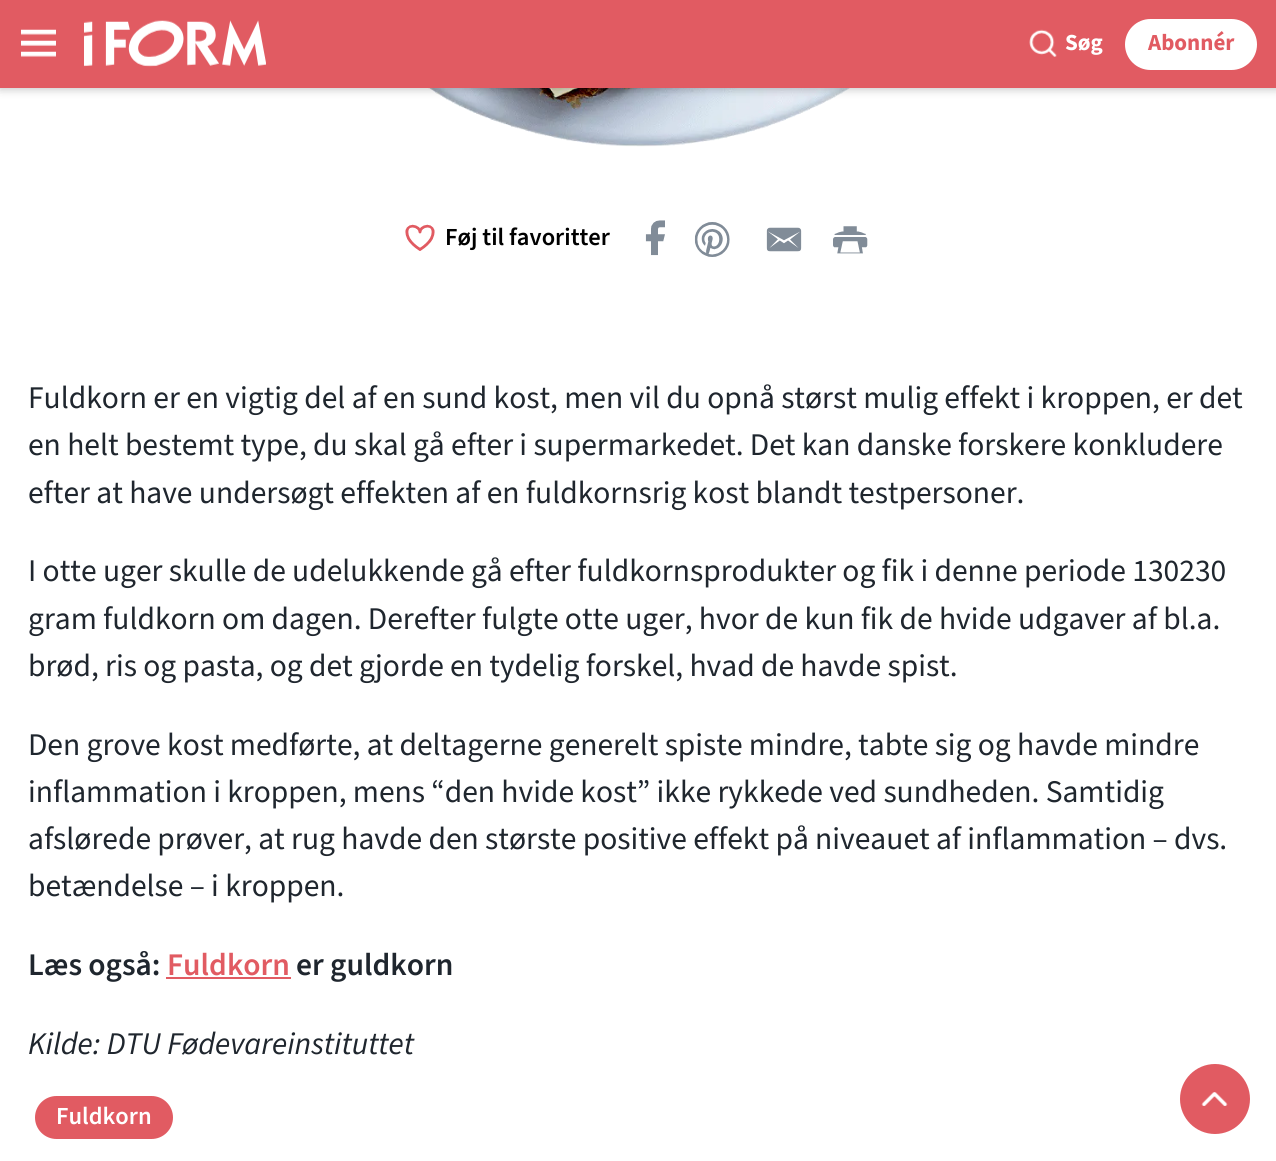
import math
import cairo



def rounded_rect(context, x, y, w, h, r):
    context.new_sub_path()
    for i, (u, v) in enumerate([(x + w - r, y + h - r), (x + r, y + h - r), (x + r, y + r), (x + w - r, y + r)]):
        context.arc(u, v, r, i * math.pi / 2, (i + 1) * math.pi / 2)
    context.close_path()


def draw_shadow(context, x, y, w, h, r, blur, alpha):
    context.push_group_with_content(cairo.Content.ALPHA)
    context.set_operator(cairo.Operator.SOURCE)
    for i in range(15, -16, -2):
        e = blur * i / 6
        if min(w, h) + 2 * e > 0:
            context.set_source_rgba(0, 0, 0, alpha * math.erfc((i - 1) / 8.5) / 2)
            rounded_rect(context, x - e, y - e, w + 2 * e, h + 2 * e, max(0, min(r + e + blur * .6, min(w, h) / 2 + e)))
            context.fill()
    context.mask(context.pop_group())


def draw_image(context, path, x, y, w, h):
    context.save()
    context.set_source_surface(cairo.ImageSurface.create_from_png(path), x, y)
    context.rectangle(x, y, w, h)
    context.fill()
    context.restore()


def draw(context):
    context.set_source_rgb(1, 1, 1)
    context.paint()
    draw_image(context, "images/4.png", 428, 88, 423, 59)
    context.set_source_rgb(0, 0, 0)
    draw_shadow(context, 0, 2, 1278, 87, 0, 4.5, 0.25)
    context.set_source_rgb(225 / 255, 91 / 255, 98 / 255)
    context.rectangle(0, 0, 1276, 88)
    context.fill()
    draw_image(context, "images/1.png", 21, 29, 35, 28)
    draw_image(context, "images/2.png", 84, 20, 182, 47)
    draw_image(context, "images/3.png", 1029, 29, 28, 28)
    context.set_source_rgb(1, 1, 1)
    rounded_rect(context, 1125, 19, 132, 51, 25.5)
    context.fill()
    draw_image(context, "images/5.png", 405, 224, 30, 27)
    draw_image(context, "images/6.png", 645, 220, 20, 36)
    draw_image(context, "images/7.png", 694, 222, 36, 35)
    draw_image(context, "images/8.png", 766, 227, 36, 25)
    draw_image(context, "images/9.png", 833, 226, 35, 28)
    context.set_source_rgb(225 / 255, 91 / 255, 98 / 255)
    context.rectangle(166, 977, 125, 2)
    context.fill()
    rounded_rect(context, 35, 1096, 138, 43, 21.5)
    context.fill()
    context.arc(1215, 1099, 35, 0, 2 * math.pi)
    context.fill()
    draw_image(context, "images/10.png", 1201, 1092, 27, 14)
    context.select_font_face("Source Sans 3", cairo.FontSlant.NORMAL, cairo.FontWeight.BOLD)
    context.set_font_size(23)
    context.set_source_rgb(1, 1, 1)
    context.move_to(1065, 50)
    context.show_text("Søg")
    context.set_source_rgb(225 / 255, 91 / 255, 98 / 255)
    context.move_to(1148, 50)
    context.show_text("Abonnér")
    context.select_font_face("Source Sans 3 SemiBold")
    context.set_font_size(24.5)
    context.set_source_rgb(0, 0, 0)
    context.move_to(445, 245)
    context.show_text("Føj til favoritter")
    context.select_font_face("Source Sans 3")
    context.set_font_size(31.5)
    context.set_source_rgb(31 / 255, 38 / 255, 46 / 255)
    context.move_to(28, 408)
    context.show_text("Fuldkorn er en vigtig del af en sund kost, men vil du opnå størst mulig effekt i kroppen, er det")
    context.move_to(28, 455)
    context.show_text("en helt bestemt type, du skal gå efter i supermarkedet. Det kan danske forskere konkludere")
    context.move_to(28, 503)
    context.show_text("efter at have undersøgt effekten af en fuldkornsrig kost blandt testpersoner.")
    context.move_to(28, 581)
    context.show_text("I otte uger skulle de udelukkende gå efter fuldkornsprodukter og fik i denne periode 130230")
    context.move_to(28, 629)
    context.show_text("gram fuldkorn om dagen. Derefter fulgte otte uger, hvor de kun fik de hvide udgaver af bl.a.")
    context.move_to(28, 676)
    context.show_text("brød, ris og pasta, og det gjorde en tydelig forskel, hvad de havde spist.")
    context.move_to(28, 755)
    context.show_text("Den grove kost medførte, at deltagerne generelt spiste mindre, tabte sig og havde mindre")
    context.move_to(28, 802)
    context.show_text("inflammation i kroppen, mens “den hvide kost” ikke rykkede ved sundheden. Samtidig")
    context.move_to(28, 849)
    context.show_text("afslørede prøver, at rug havde den største positive effekt på niveauet af inflammation – dvs.")
    context.move_to(28, 896)
    context.show_text("betændelse – i kroppen.")
    context.select_font_face("Source Sans 3 SemiBold")
    context.move_to(28, 975)
    context.show_text("Læs også:")
    context.set_source_rgb(225 / 255, 91 / 255, 98 / 255)
    context.move_to(167, 975)
    context.show_text("Fuldkorn")
    context.set_source_rgb(31 / 255, 38 / 255, 46 / 255)
    context.move_to(296, 975)
    context.show_text("er guldkorn")
    context.select_font_face("Source Sans 3", cairo.FontSlant.ITALIC)
    context.move_to(28, 1054)
    context.show_text("Kilde: DTU Fødevareinstituttet")
    context.select_font_face("Source Sans 3 SemiBold")
    context.set_font_size(24.5)
    context.set_source_rgb(1, 1, 1)
    context.move_to(56, 1124)
    context.show_text("Fuldkorn")


surface = cairo.ImageSurface(cairo.Format.RGB24, 1276, 1161)
context = cairo.Context(surface)
options = cairo.FontOptions()
options.set_hint_metrics(cairo.HintMetrics.OFF)
options.set_hint_style(cairo.HintStyle.NONE)
context.set_font_options(options)
context.set_miter_limit(4)
draw(context)
surface.write_to_png("out.png")
